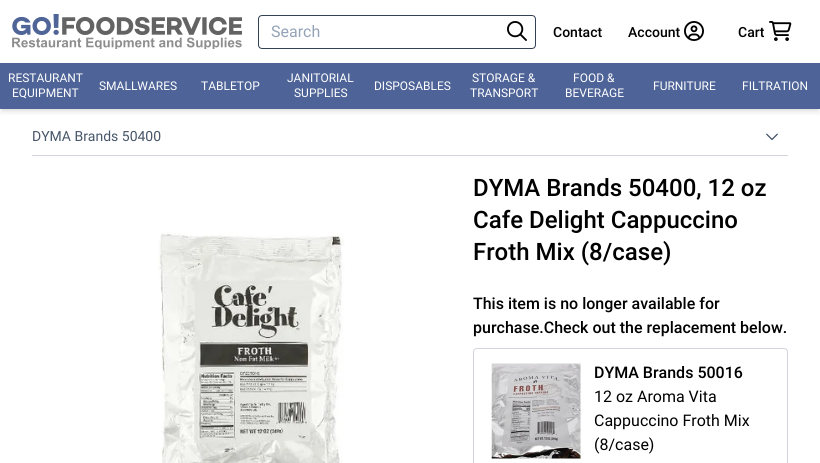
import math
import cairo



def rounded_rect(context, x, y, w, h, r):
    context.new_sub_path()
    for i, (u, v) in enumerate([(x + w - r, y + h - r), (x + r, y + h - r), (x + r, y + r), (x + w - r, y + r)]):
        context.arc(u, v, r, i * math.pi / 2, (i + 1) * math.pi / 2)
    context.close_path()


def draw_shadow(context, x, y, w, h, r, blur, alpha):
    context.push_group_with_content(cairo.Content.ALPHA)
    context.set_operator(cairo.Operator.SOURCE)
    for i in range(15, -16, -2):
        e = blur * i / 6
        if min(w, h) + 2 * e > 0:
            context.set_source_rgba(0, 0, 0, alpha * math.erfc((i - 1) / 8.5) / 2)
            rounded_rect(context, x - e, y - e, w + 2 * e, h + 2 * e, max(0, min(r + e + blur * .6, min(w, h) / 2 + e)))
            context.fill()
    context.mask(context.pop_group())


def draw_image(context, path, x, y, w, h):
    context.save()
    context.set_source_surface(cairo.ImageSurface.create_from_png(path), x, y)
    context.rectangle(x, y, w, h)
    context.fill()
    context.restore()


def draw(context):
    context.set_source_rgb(1, 1, 1)
    context.paint()
    context.save()
    context.rectangle(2, 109, 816, 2)
    context.clip()
    context.set_source_rgb(0, 0, 0)
    draw_shadow(context, 2, 4, 816, 105, 0, 2, 0.1)
    context.restore()
    context.save()
    context.rectangle(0, 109, 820, 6)
    context.clip()
    context.set_source_rgb(0, 0, 0)
    draw_shadow(context, 1, 5, 818, 107, 0, 3, 0.1)
    context.restore()
    draw_image(context, "images/1.png", 12, 14, 230, 35)
    rounded_rect(context, 258.5, 15.5, 277, 33, 3.5)
    context.set_source_rgb(51 / 255, 65 / 255, 85 / 255)
    context.set_line_width(1)
    context.stroke()
    draw_image(context, "images/2.png", 507, 21, 20, 20)
    draw_image(context, "images/3.png", 684, 21, 20, 20)
    draw_image(context, "images/4.png", 769, 21, 23, 20)
    context.set_source_rgb(78 / 255, 99 / 255, 151 / 255)
    context.rectangle(0, 63, 820, 46)
    context.fill()
    context.set_source_rgb(209 / 255, 213 / 255, 219 / 255)
    context.rectangle(32, 155, 756, 1)
    context.fill()
    draw_image(context, "images/5.png", 766, 133, 12, 8)
    draw_image(context, "images/6.png", 158, 232, 187, 231)
    rounded_rect(context, 473.5, 348.5, 314, 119, 3.5)
    context.stroke()
    draw_image(context, "images/7.png", 491, 363, 91, 96)
    context.select_font_face("Roboto")
    context.set_font_size(16)
    context.set_source_rgb(148 / 255, 163 / 255, 184 / 255)
    context.move_to(271, 37)
    context.show_text("Search")
    context.select_font_face("Roboto Medium")
    context.set_font_size(14)
    context.set_source_rgb(0, 0, 0)
    context.move_to(553, 37)
    context.show_text("Contact")
    context.move_to(628, 37)
    context.show_text("Account")
    context.move_to(738, 37)
    context.show_text("Cart")
    context.select_font_face("Roboto")
    context.set_font_size(12)
    context.set_source_rgb(1, 1, 1)
    context.move_to(8, 82)
    context.show_text("RESTAURANT")
    context.move_to(12, 97)
    context.show_text("EQUIPMENT")
    context.move_to(99, 90)
    context.show_text("SMALLWARES")
    context.move_to(201, 90)
    context.show_text("TABLETOP")
    context.move_to(287, 82)
    context.show_text("JANITORIAL")
    context.move_to(294, 97)
    context.show_text("SUPPLIES")
    context.move_to(374, 90)
    context.show_text("DISPOSABLES")
    context.move_to(472, 82)
    context.show_text("STORAGE &")
    context.move_to(470, 97)
    context.show_text("TRANSPORT")
    context.move_to(573, 82)
    context.show_text("FOOD &")
    context.move_to(565, 97)
    context.show_text("BEVERAGE")
    context.move_to(653, 90)
    context.show_text("FURNITURE")
    context.move_to(742, 90)
    context.show_text("FILTRATION")
    context.set_font_size(14)
    context.set_source_rgb(71 / 255, 85 / 255, 105 / 255)
    context.move_to(32, 141)
    context.show_text("DYMA Brands 50400")
    context.select_font_face("Roboto Medium")
    context.set_font_size(24)
    context.set_source_rgb(0, 0, 0)
    context.move_to(473, 196)
    context.show_text("DYMA Brands 50400, 12 oz")
    context.move_to(473, 228)
    context.show_text("Cafe Delight Cappuccino")
    context.move_to(473, 260)
    context.show_text("Froth Mix (8/case)")
    context.set_font_size(16)
    context.move_to(473, 309)
    context.show_text("This item is no longer available for")
    context.move_to(473, 333)
    context.show_text("purchase.Check out the replacement below.")
    context.move_to(594, 378)
    context.show_text("DYMA Brands 50016")
    context.select_font_face("Roboto")
    context.move_to(594, 402)
    context.show_text("12 oz Aroma Vita")
    context.move_to(594, 426)
    context.show_text("Cappuccino Froth Mix")
    context.move_to(594, 450)
    context.show_text("(8/case)")


surface = cairo.ImageSurface(cairo.Format.RGB24, 820, 463)
context = cairo.Context(surface)
options = cairo.FontOptions()
options.set_hint_metrics(cairo.HintMetrics.OFF)
options.set_hint_style(cairo.HintStyle.NONE)
context.set_font_options(options)
context.set_miter_limit(4)
draw(context)
surface.write_to_png("out.png")
